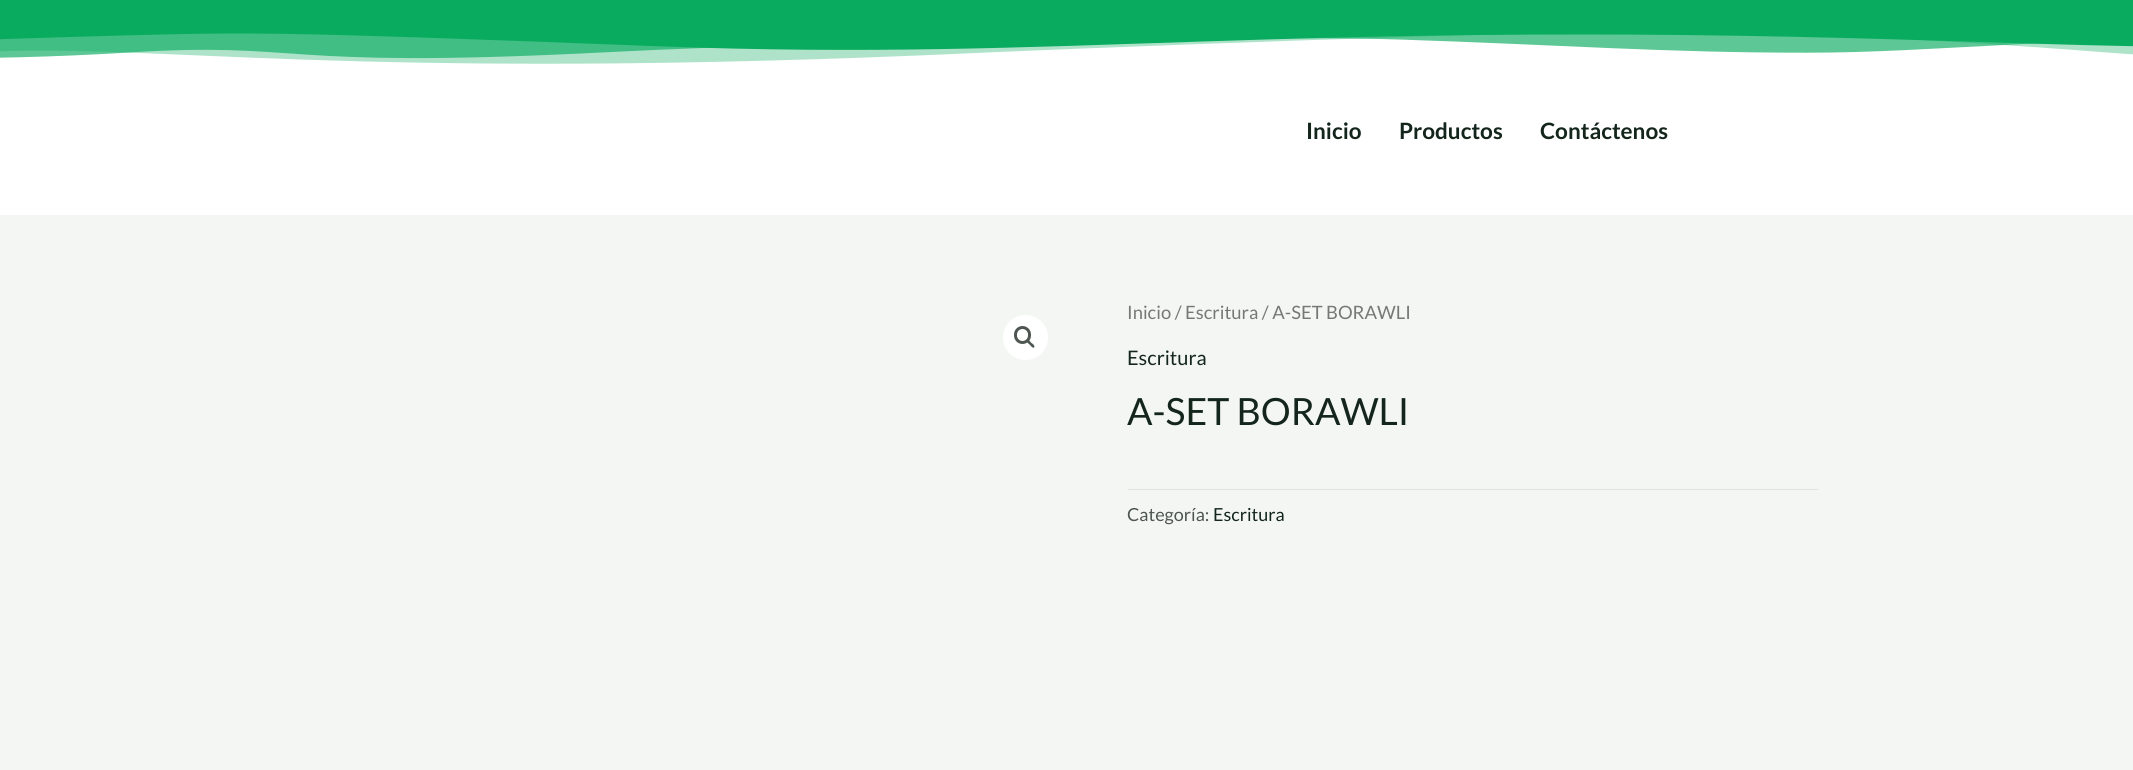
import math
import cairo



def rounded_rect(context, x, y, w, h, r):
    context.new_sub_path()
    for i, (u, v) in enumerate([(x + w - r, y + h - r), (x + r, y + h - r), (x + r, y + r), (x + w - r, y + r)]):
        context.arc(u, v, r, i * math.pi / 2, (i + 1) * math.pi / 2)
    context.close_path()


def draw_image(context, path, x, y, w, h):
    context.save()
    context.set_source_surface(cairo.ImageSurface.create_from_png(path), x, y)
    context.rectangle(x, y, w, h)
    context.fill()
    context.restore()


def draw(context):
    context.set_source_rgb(244 / 255, 246 / 255, 244 / 255)
    context.paint()
    context.set_source_rgb(9 / 255, 171 / 255, 95 / 255)
    context.rectangle(0, 0, 2133, 31)
    context.fill()
    context.set_source_rgb(1, 1, 1)
    context.rectangle(0, 33, 2133, 182)
    context.fill()
    draw_image(context, "images/1.png", 0, 31, 2133, 33)
    context.arc(1025.5, 337.5, 22.5, 0, 2 * math.pi)
    context.fill()
    rounded_rect(context, 1015.5, 327.5, 14, 15, 7)
    context.set_source_rgb(78 / 255, 86 / 255, 82 / 255)
    context.set_line_width(3)
    context.stroke()
    context.new_path()
    context.move_to(1027, 340)
    context.curve_to(1028.5, 339, 1030.5, 342, 1031.5, 343)
    context.curve_to(1032.5, 343.5, 1035.5, 346, 1034, 347.5)
    context.curve_to(1032.5, 348.5, 1030.5, 345.5, 1029.5, 344.5)
    context.curve_to(1029, 344, 1025.5, 341.5, 1027, 340)
    context.close_path()
    context.fill()
    context.set_source_rgb(226 / 255, 226 / 255, 226 / 255)
    context.rectangle(1128, 489, 690, 1)
    context.fill()
    context.select_font_face("Lato", cairo.FontSlant.NORMAL, cairo.FontWeight.BOLD)
    context.set_font_size(22.5)
    context.set_source_rgb(20 / 255, 38 / 255, 28 / 255)
    context.move_to(1306, 139)
    context.show_text("Inicio")
    context.move_to(1399, 139)
    context.show_text("Productos")
    context.move_to(1540, 139)
    context.show_text("Contáctenos")
    context.select_font_face("Lato")
    context.set_font_size(18.4)
    context.set_source_rgb(119 / 255, 119 / 255, 119 / 255)
    context.move_to(1127, 319)
    context.show_text("Inicio / Escritura / A-SET BORAWLI")
    context.set_font_size(20)
    context.set_source_rgb(20 / 255, 38 / 255, 28 / 255)
    context.move_to(1127, 365)
    context.show_text("Escritura")
    context.set_font_size(37.5)
    context.move_to(1127, 425)
    context.show_text("A-SET BORAWLI")
    context.set_font_size(18)
    context.set_source_rgb(78 / 255, 86 / 255, 82 / 255)
    context.move_to(1127, 521)
    context.show_text("Categoría:")
    context.set_source_rgb(20 / 255, 38 / 255, 28 / 255)
    context.move_to(1213, 521)
    context.show_text("Escritura")


surface = cairo.ImageSurface(cairo.Format.RGB24, 2133, 770)
context = cairo.Context(surface)
options = cairo.FontOptions()
options.set_hint_metrics(cairo.HintMetrics.OFF)
options.set_hint_style(cairo.HintStyle.NONE)
context.set_font_options(options)
context.set_miter_limit(4)
draw(context)
surface.write_to_png("out.png")
